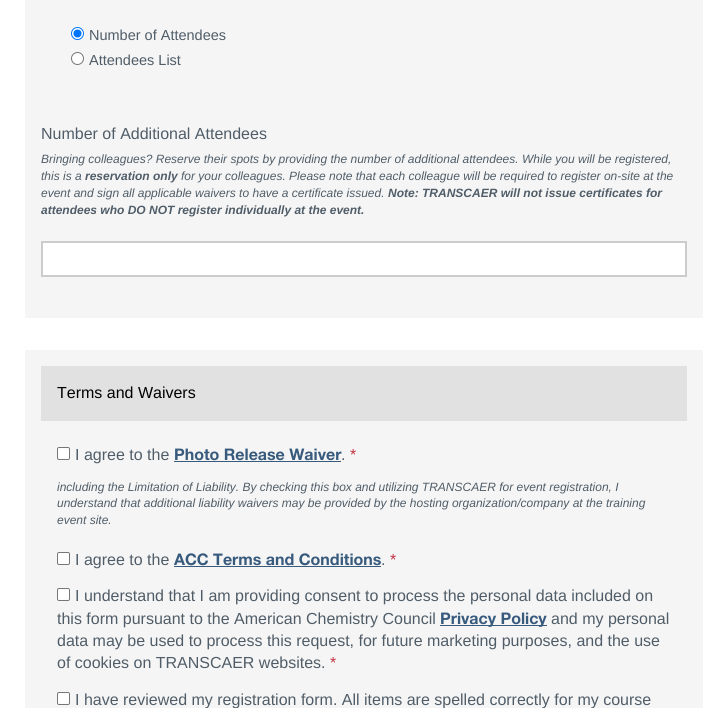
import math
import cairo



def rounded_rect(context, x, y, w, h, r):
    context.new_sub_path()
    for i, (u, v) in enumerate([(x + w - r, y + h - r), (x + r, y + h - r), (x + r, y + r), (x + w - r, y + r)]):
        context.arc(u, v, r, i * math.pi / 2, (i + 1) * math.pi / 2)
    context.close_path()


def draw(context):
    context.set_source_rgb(1, 1, 1)
    context.paint()
    context.set_source_rgb(245 / 255, 245 / 255, 245 / 255)
    context.rectangle(25, 0, 678, 318)
    context.fill()
    context.set_source_rgb(1, 1, 1)
    context.arc(77.5, 33.5, 6, 0, 2 * math.pi)
    context.fill_preserve()
    context.set_source_rgb(0, 117 / 255, 1)
    context.set_line_width(1)
    context.stroke()
    context.arc(77.5, 33.5, 4, 0, 2 * math.pi)
    context.fill()
    context.set_source_rgb(1, 1, 1)
    context.arc(77.5, 58.5, 6, 0, 2 * math.pi)
    context.fill_preserve()
    context.set_source_rgb(118 / 255, 118 / 255, 118 / 255)
    context.stroke()
    context.set_source_rgb(1, 1, 1)
    context.rectangle(42, 242, 644, 34)
    context.fill_preserve()
    context.set_source_rgb(204 / 255, 204 / 255, 204 / 255)
    context.set_line_width(2)
    context.stroke()
    context.set_source_rgb(245 / 255, 245 / 255, 245 / 255)
    context.rectangle(25, 350, 678, 358)
    context.fill()
    context.set_source_rgb(225 / 255, 225 / 255, 225 / 255)
    context.rectangle(41, 366, 646, 55)
    context.fill()
    context.set_source_rgb(1, 1, 1)
    rounded_rect(context, 57.5, 447.5, 12, 12, 1.5)
    context.fill_preserve()
    context.set_source_rgb(118 / 255, 118 / 255, 118 / 255)
    context.set_line_width(1)
    context.stroke()
    context.set_source_rgb(55 / 255, 90 / 255, 125 / 255)
    context.rectangle(174, 461, 167, 1)
    context.fill()
    context.set_source_rgb(1, 1, 1)
    rounded_rect(context, 57.5, 552.5, 12, 12, 1.5)
    context.fill_preserve()
    context.set_source_rgb(118 / 255, 118 / 255, 118 / 255)
    context.stroke()
    context.set_source_rgb(55 / 255, 90 / 255, 125 / 255)
    context.rectangle(174, 566, 207, 1)
    context.fill()
    context.set_source_rgb(1, 1, 1)
    rounded_rect(context, 57.5, 588.5, 12, 12, 1.5)
    context.fill_preserve()
    context.set_source_rgb(118 / 255, 118 / 255, 118 / 255)
    context.stroke()
    context.set_source_rgb(55 / 255, 90 / 255, 125 / 255)
    context.rectangle(440, 625, 107, 1)
    context.fill()
    context.set_source_rgb(1, 1, 1)
    rounded_rect(context, 57.5, 692.5, 12, 12, 1.5)
    context.fill_preserve()
    context.set_source_rgb(118 / 255, 118 / 255, 118 / 255)
    context.stroke()
    context.select_font_face("Liberation Sans")
    context.set_font_size(14.5)
    context.set_source_rgb(80 / 255, 93 / 255, 104 / 255)
    context.move_to(89, 40)
    context.show_text("Number of Attendees")
    context.move_to(89, 65)
    context.show_text("Attendees List")
    context.set_font_size(16)
    context.move_to(41, 139)
    context.show_text("Number of Additional Attendees")
    context.select_font_face("Liberation Sans", cairo.FontSlant.ITALIC)
    context.set_font_size(12)
    context.move_to(41, 163)
    context.show_text("Bringing colleagues? Reserve their spots by providing the number of additional attendees. While you will be registered,")
    context.move_to(41, 180)
    context.show_text("this is a")
    context.select_font_face("Liberation Sans", cairo.FontSlant.ITALIC, cairo.FontWeight.BOLD)
    context.move_to(85, 180)
    context.show_text("reservation only")
    context.select_font_face("Liberation Sans", cairo.FontSlant.ITALIC)
    context.move_to(181, 180)
    context.show_text("for your colleagues. Please note that each colleague will be required to register on-site at the")
    context.move_to(41, 197)
    context.show_text("event and sign all applicable waivers to have a certificate issued.")
    context.select_font_face("Liberation Sans", cairo.FontSlant.ITALIC, cairo.FontWeight.BOLD)
    context.move_to(388, 197)
    context.show_text("Note: TRANSCAER will not issue certificates for")
    context.move_to(41, 214)
    context.show_text("attendees who DO NOT register individually at the event.")
    context.select_font_face("Liberation Sans")
    context.set_font_size(16)
    context.set_source_rgb(0, 0, 0)
    context.move_to(57, 398)
    context.show_text("Terms and Waivers")
    context.set_source_rgb(80 / 255, 93 / 255, 104 / 255)
    context.move_to(75, 460)
    context.show_text("I agree to the")
    context.select_font_face("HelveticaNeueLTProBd")
    context.set_source_rgb(55 / 255, 90 / 255, 125 / 255)
    context.move_to(174, 460)
    context.show_text("Photo Release Waiver")
    context.select_font_face("Liberation Sans")
    context.set_source_rgb(196 / 255, 52 / 255, 66 / 255)
    context.move_to(350, 460)
    context.show_text("*")
    context.set_source_rgb(80 / 255, 93 / 255, 104 / 255)
    context.move_to(341, 460)
    context.show_text(".")
    context.select_font_face("Liberation Sans", cairo.FontSlant.ITALIC)
    context.set_font_size(12)
    context.move_to(57, 491)
    context.show_text("including the Limitation of Liability. By checking this box and utilizing TRANSCAER for event registration, I")
    context.move_to(57, 507)
    context.show_text("understand that additional liability waivers may be provided by the hosting organization/company at the training")
    context.move_to(57, 524)
    context.show_text("event site.")
    context.select_font_face("Liberation Sans")
    context.set_font_size(16)
    context.move_to(75, 565)
    context.show_text("I agree to the")
    context.select_font_face("HelveticaNeueLTProBd")
    context.set_source_rgb(55 / 255, 90 / 255, 125 / 255)
    context.move_to(174, 565)
    context.show_text("ACC Terms and Conditions")
    context.select_font_face("Liberation Sans")
    context.set_source_rgb(196 / 255, 52 / 255, 66 / 255)
    context.move_to(390, 565)
    context.show_text("*")
    context.set_source_rgb(80 / 255, 93 / 255, 104 / 255)
    context.move_to(381, 565)
    context.show_text(".")
    context.move_to(75, 601)
    context.show_text("I understand that I am providing consent to process the personal data included on")
    context.move_to(57, 624)
    context.show_text("this form pursuant to the American Chemistry Council")
    context.select_font_face("HelveticaNeueLTProBd")
    context.set_source_rgb(55 / 255, 90 / 255, 125 / 255)
    context.move_to(440, 624)
    context.show_text("Privacy Policy")
    context.select_font_face("Liberation Sans")
    context.set_source_rgb(80 / 255, 93 / 255, 104 / 255)
    context.move_to(551, 624)
    context.show_text("and my personal")
    context.move_to(57, 646)
    context.show_text("data may be used to process this request, for future marketing purposes, and the use")
    context.move_to(57, 668)
    context.show_text("of cookies on TRANSCAER websites.")
    context.set_source_rgb(196 / 255, 52 / 255, 66 / 255)
    context.move_to(330, 668)
    context.show_text("*")
    context.set_source_rgb(80 / 255, 93 / 255, 104 / 255)
    context.move_to(75, 705)
    context.show_text("I have reviewed my registration form. All items are spelled correctly for my course")


surface = cairo.ImageSurface(cairo.Format.RGB24, 718, 708)
context = cairo.Context(surface)
options = cairo.FontOptions()
options.set_hint_metrics(cairo.HintMetrics.OFF)
options.set_hint_style(cairo.HintStyle.NONE)
context.set_font_options(options)
context.set_miter_limit(4)
draw(context)
surface.write_to_png("out.png")
